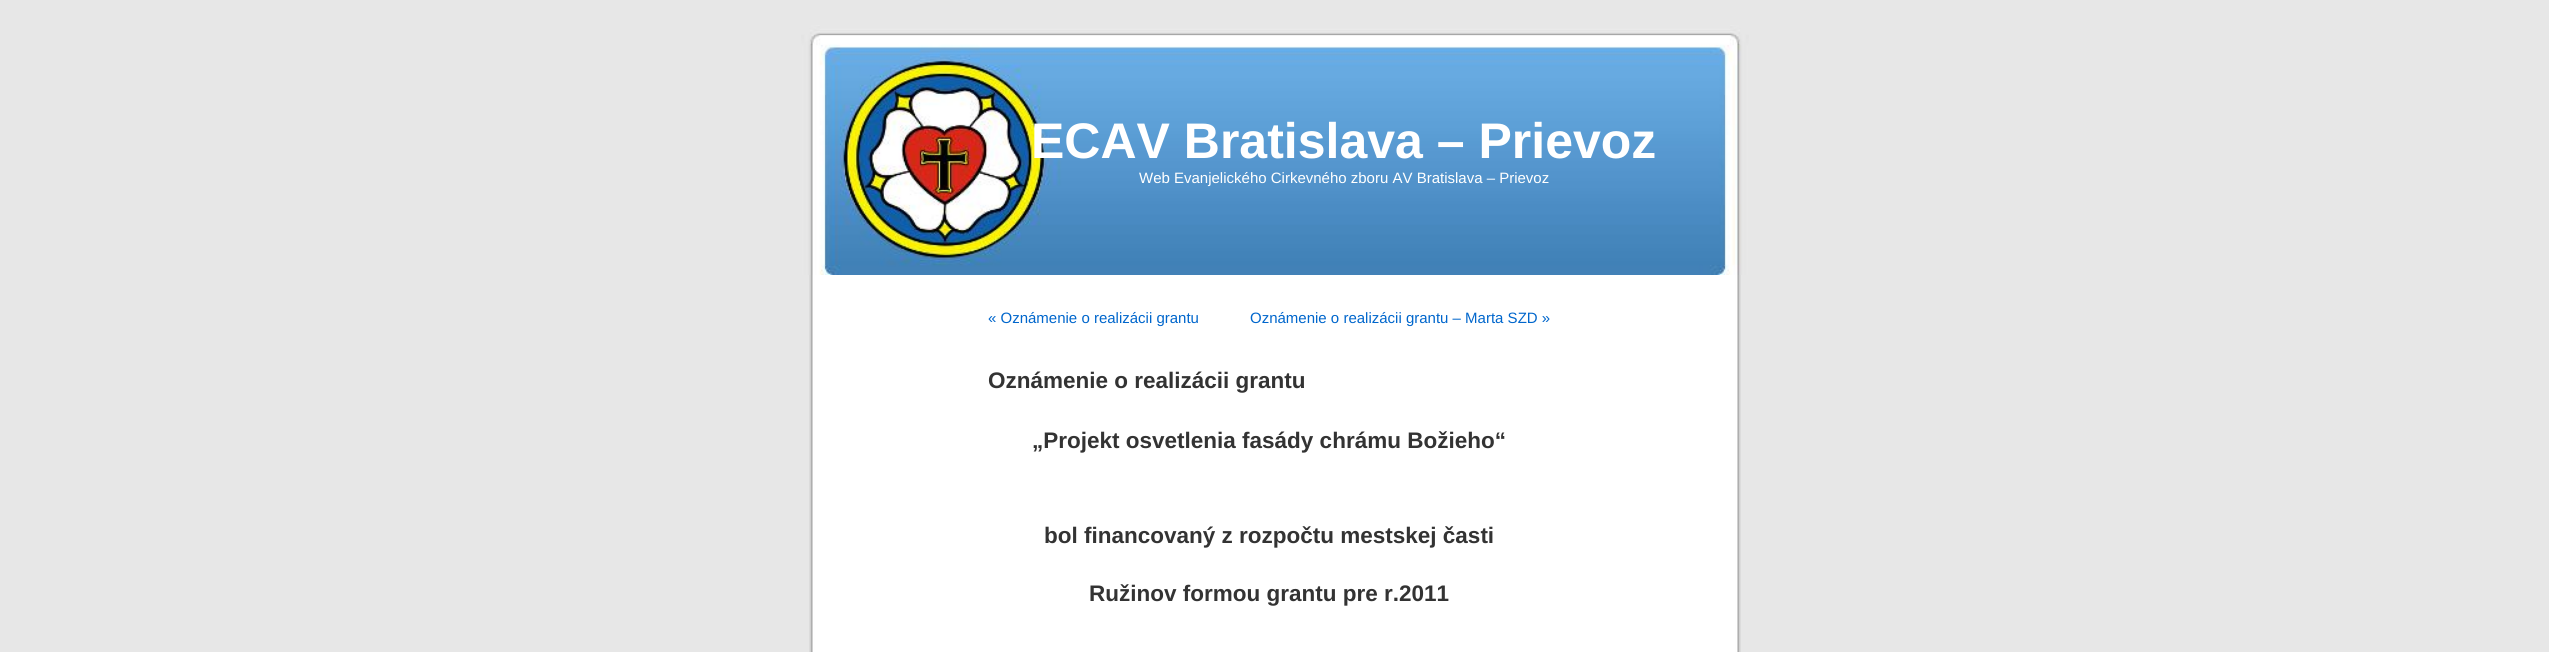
import math
import cairo



def draw_image(context, path, x, y, w, h):
    context.save()
    context.set_source_surface(cairo.ImageSurface.create_from_png(path), x, y)
    context.rectangle(x, y, w, h)
    context.fill()
    context.restore()


def draw(context):
    context.set_source_rgb(231 / 255, 231 / 255, 231 / 255)
    context.paint()
    draw_image(context, "images/1.png", 809, 275, 932, 377)
    draw_image(context, "images/2.png", 801, 25, 948, 250)
    context.select_font_face("Liberation Sans", cairo.FontSlant.NORMAL, cairo.FontWeight.BOLD)
    context.set_font_size(50)
    context.set_source_rgb(1, 1, 1)
    context.move_to(1031, 158)
    context.show_text("ECAV Bratislava – Prievoz")
    context.select_font_face("Liberation Sans")
    context.set_font_size(15)
    context.move_to(1139, 183)
    context.show_text("Web Evanjelického Cirkevného zboru AV Bratislava – Prievoz")
    context.set_source_rgb(0, 102 / 255, 204 / 255)
    context.move_to(988, 323)
    context.show_text("« Oznámenie o realizácii grantu")
    context.move_to(1250, 323)
    context.show_text("Oznámenie o realizácii grantu – Marta SZD »")
    context.select_font_face("Liberation Sans", cairo.FontSlant.NORMAL, cairo.FontWeight.BOLD)
    context.set_font_size(22.5)
    context.set_source_rgb(51 / 255, 51 / 255, 51 / 255)
    context.move_to(988, 388)
    context.show_text("Oznámenie o realizácii grantu")
    context.move_to(1032, 448)
    context.show_text("„Projekt osvetlenia fasády chrámu Božieho“")
    context.move_to(1044, 543)
    context.show_text("bol financovaný z rozpočtu mestskej časti")
    context.move_to(1089, 601)
    context.show_text("Ružinov formou grantu pre r.2011")


surface = cairo.ImageSurface(cairo.Format.RGB24, 2549, 652)
context = cairo.Context(surface)
options = cairo.FontOptions()
options.set_hint_metrics(cairo.HintMetrics.OFF)
options.set_hint_style(cairo.HintStyle.NONE)
context.set_font_options(options)
context.set_miter_limit(4)
draw(context)
surface.write_to_png("out.png")
